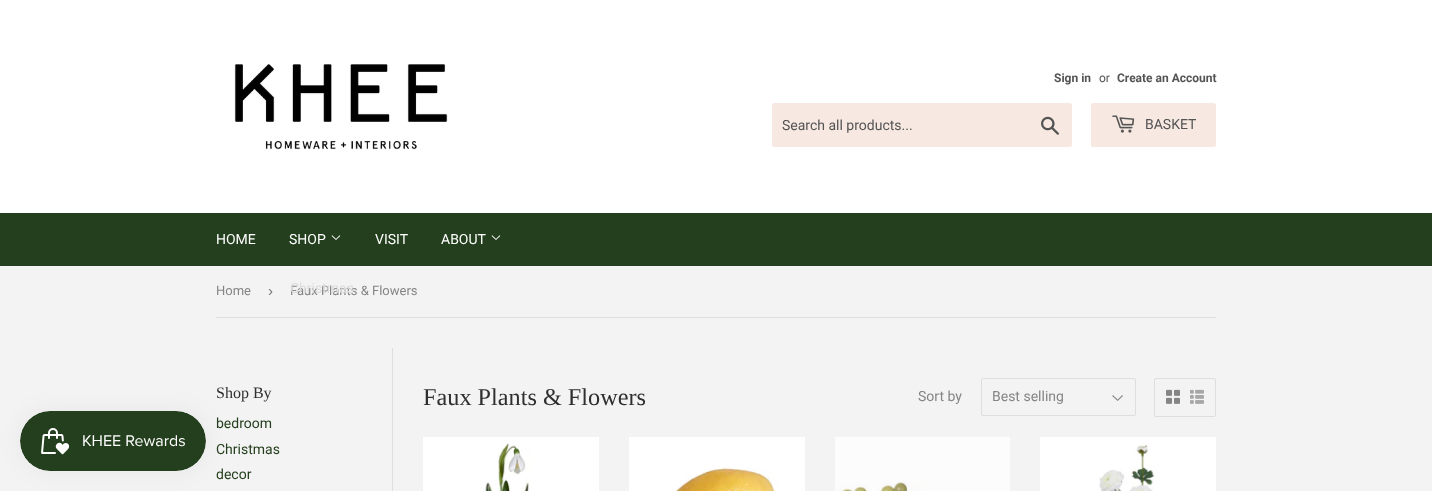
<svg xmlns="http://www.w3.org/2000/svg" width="1432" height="491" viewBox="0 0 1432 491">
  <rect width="100%" height="100%" fill="rgb(243,243,243)"/>
  <rect x="0" y="0" width="1432" height="213" fill="rgb(255,255,255)"/>
  <image x="234" y="64" width="214" height="86" href="pic1.png"/>
  <text x="1054" y="82" font-family="Roboto" font-size="12" font-weight="bold" fill="rgb(84,84,84)">Sign in</text>
  <text x="1099" y="82" font-family="Roboto" font-size="12" fill="rgb(84,84,84)">or</text>
  <text x="1117" y="82" font-family="Roboto" font-size="12" font-weight="bold" fill="rgb(84,84,84)">Create an Account</text>
  <rect x="772" y="103" width="300" height="44" rx="2" fill="rgb(247,233,226)"/>
  <text x="782" y="130" font-family="Roboto" font-size="14" fill="rgb(84,84,84)">Search all products...</text>
  <image x="1041" y="116" width="18" height="19" href="pic2.png"/>
  <rect x="1091" y="103" width="125" height="44" rx="2" fill="rgb(247,233,226)"/>
  <image x="1112" y="115" width="23" height="18" href="pic3.png"/>
  <text x="1145" y="129" font-family="Roboto" font-size="14" fill="rgb(84,84,84)">BASKET</text>
  <rect x="0" y="213" width="1432" height="53" fill="rgb(36,63,29)"/>
  <g font-family="Roboto" font-size="14" fill="rgb(255,255,255)">
    <text x="216" y="244">HOME</text>
    <text x="289" y="244">SHOP</text>
  </g>
  <image x="331" y="235" width="10" height="5" href="pic4.png"/>
  <text x="290" y="295" font-family="Roboto" font-size="13" fill="rgb(133,133,133)">Faux Plants &amp; Flowers</text>
  <text x="290" y="293" font-family="Roboto" font-size="14" fill="rgb(220,220,220)">Christmas</text>
  <g font-family="Roboto" font-size="14" fill="rgb(255,255,255)">
    <text x="375" y="244">VISIT</text>
    <text x="441" y="244">ABOUT</text>
  </g>
  <image x="491" y="235" width="10" height="5" href="pic4.png"/>
  <rect x="20" y="411" width="186" height="60" rx="30" fill="rgba(0,0,0,0.05)" filter="blur(12.5px)"/>
  <image x="20" y="411" width="186" height="60" href="pic5.png"/>
  <rect x="216" y="317" width="1000" height="1" fill="rgb(222,222,222)"/>
  <text x="216" y="295" font-family="Roboto" font-size="13" fill="rgb(133,133,133)">Home</text>
  <text x="268" y="296" font-family="Liberation Sans" font-size="15" fill="rgb(118,118,118)">›</text>
  <text x="216" y="398" font-family="Liberation Serif" font-size="16" fill="rgb(47,47,47)">Shop By</text>
  <g font-family="Roboto" font-size="14" fill="rgb(36,63,29)">
    <text>
      <tspan x="216" y="428">bedroom</tspan>
      <tspan x="216" y="454">Christmas</tspan>
      <tspan x="216" y="479">decor</tspan>
    </text>
  </g>
  <rect x="392" y="348" width="1" height="143" fill="rgb(222,222,222)"/>
  <text x="423" y="405" font-family="Liberation Serif" font-size="24.25" fill="rgb(47,47,47)">Faux Plants &amp; Flowers</text>
  <text x="918" y="401" font-family="Roboto" font-size="14" fill="rgb(133,133,133)">Sort by</text>
  <image x="1112" y="395" width="11" height="6" href="pic6.png"/>
  <rect x="981.5" y="378.5" width="154" height="37" rx="1.5" fill="none" stroke="rgb(222,222,222)"/>
  <text x="992" y="401" font-family="Roboto" font-size="14" fill="rgb(133,133,133)">Best selling</text>
  <rect x="1154.5" y="378.5" width="61" height="38" rx="1.5" fill="none" stroke="rgb(222,222,222)"/>
  <image x="1166" y="389" width="14" height="15" href="pic7.png"/>
  <image x="1190" y="389" width="14" height="15" href="pic8.png"/>
  <image x="423" y="437" width="176" height="54" href="pic9.png"/>
  <image x="629" y="437" width="176" height="54" href="pic10.png"/>
  <image x="835" y="437" width="175" height="54" href="pic11.png"/>
  <image x="1040" y="437" width="176" height="54" href="pic12.png"/>
</svg>
